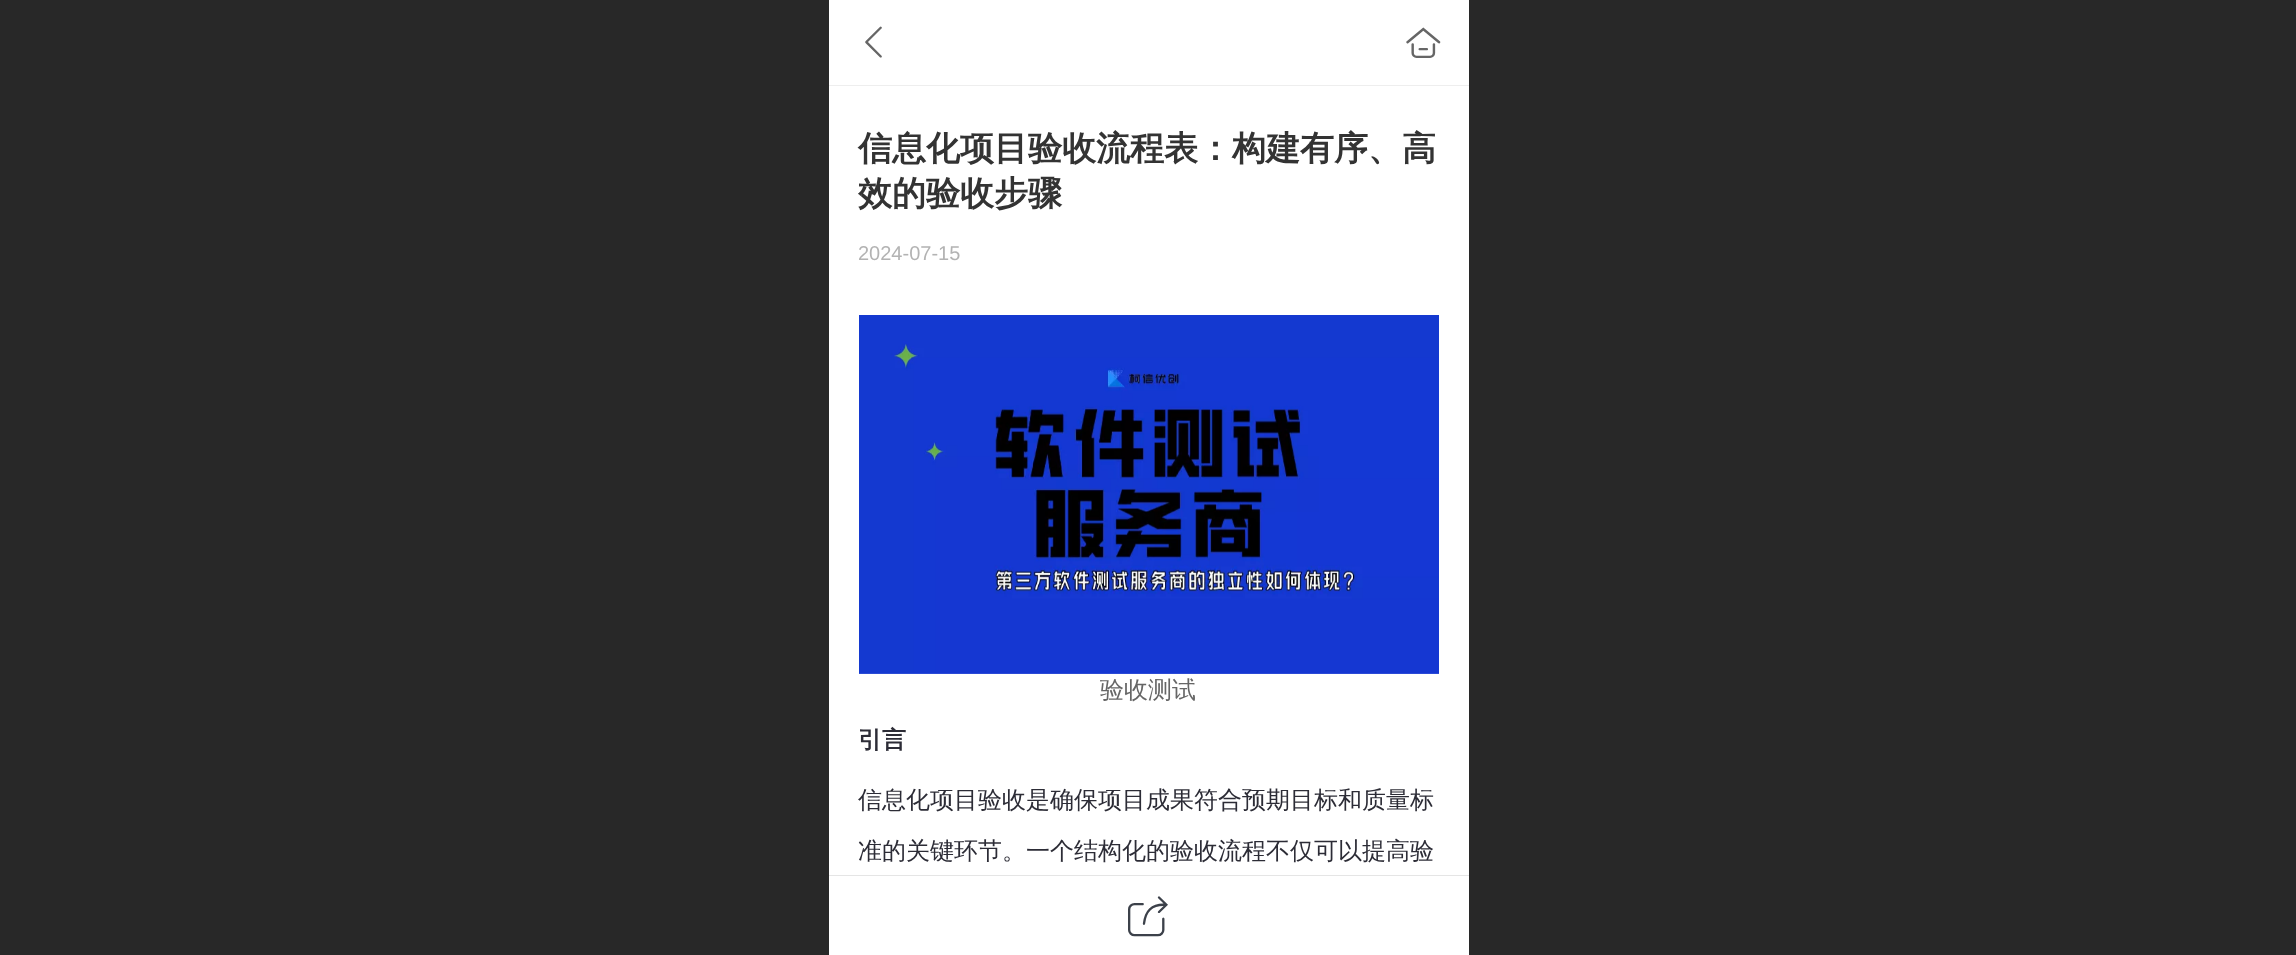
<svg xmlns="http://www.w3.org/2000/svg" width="2296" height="955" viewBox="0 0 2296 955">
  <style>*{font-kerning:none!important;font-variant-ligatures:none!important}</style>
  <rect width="100%" height="100%" fill="rgb(255,255,255)"/>
  <rect x="0" y="0" width="829" height="955" fill="rgb(40,40,40)"/>
  <rect x="829" y="85" width="640" height="1" fill="rgb(238,238,238)"/>
  <text x="858" y="55" font-family="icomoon" font-size="31" fill="rgb(102,102,102)">򰊔</text>
  <text x="1406" y="57" font-family="icomoon" font-size="34" fill="rgb(102,102,102)">򰌓</text>
  <g font-family="WenQuanYi Zen Hei" font-size="34" font-weight="bold" fill="rgb(51,51,51)">
    <text>
      <tspan x="858" y="160">信息化项目验收流程表：构建有序、高</tspan>
      <tspan x="858" y="205">效的验收步骤</tspan>
    </text>
  </g>
  <text x="858" y="260" font-family="Liberation Sans" font-size="20" fill="rgb(179,179,179)">2024-07-15</text>
  <image x="859" y="315" width="580" height="359" href="pic1.png"/>
  <text x="1100" y="698" font-family="WenQuanYi Zen Hei" font-size="24" font-weight="500" fill="rgb(102,102,102)">验收测试</text>
  <text x="858" y="748" font-family="WenQuanYi Zen Hei" font-size="24" font-weight="bold" fill="rgb(44,44,54)">引言</text>
  <g font-family="WenQuanYi Zen Hei" font-size="24" font-weight="500" fill="rgb(44,44,54)">
    <text x="858" y="808">信息化项目验收是确保项目成果符合预期目标和质量标</text>
    <text x="858" y="859">准的关键环节。一个结构化的验收流程不仅可以提高验</text>
  </g>
  <rect x="829" y="875" width="640" height="1" fill="rgb(229,229,229)"/>
  <text x="1128" y="933" font-family="icomoon" font-size="40" fill="rgb(60,65,74)">򰌐</text>
  <rect x="1469" y="0" width="827" height="955" fill="rgb(40,40,40)"/>
</svg>
